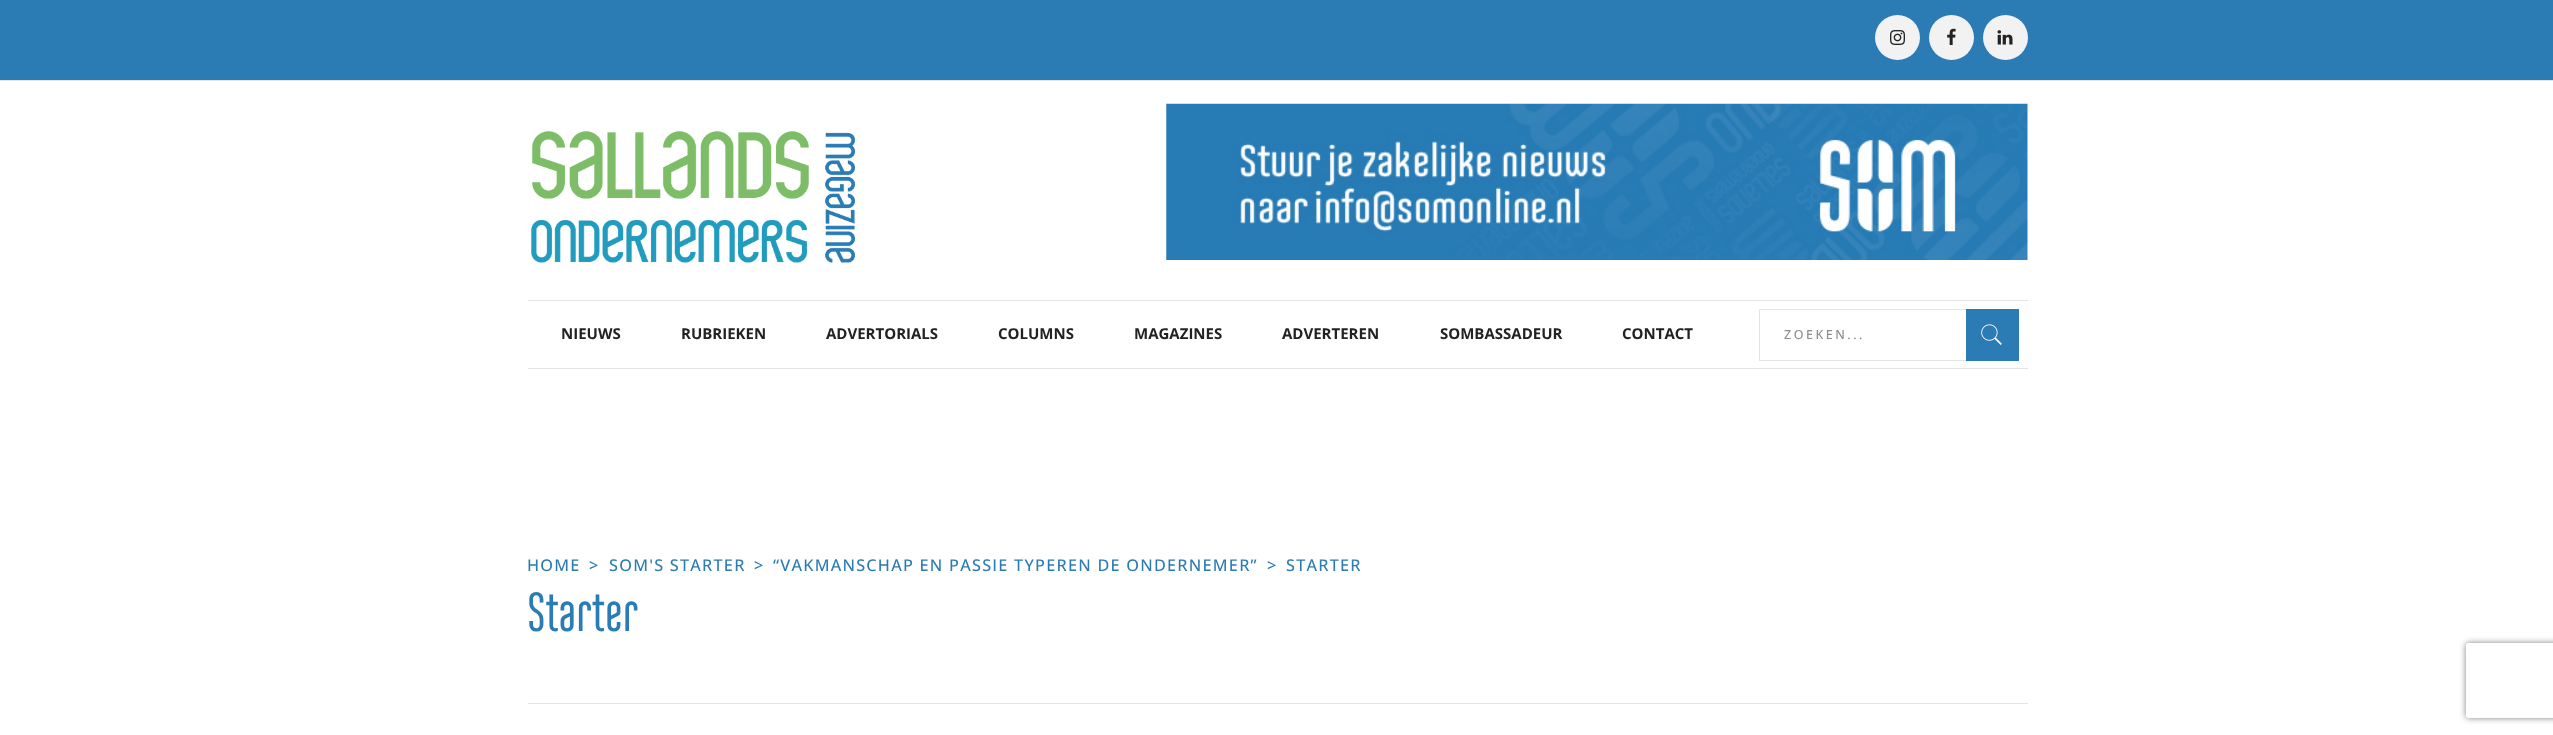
<svg xmlns="http://www.w3.org/2000/svg" width="2553" height="735" viewBox="0 0 2553 735">
  <defs>
    <clipPath id="clip1"><path d="M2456 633H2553V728H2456ZM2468.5 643H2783.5C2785 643 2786 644 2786 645.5V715.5C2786 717 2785 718 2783.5 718H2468.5C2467 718 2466 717 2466 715.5V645.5C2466 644 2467 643 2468.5 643Z" clip-rule="evenodd"/></clipPath>
  </defs>
  <rect width="100%" height="100%" fill="rgb(255,255,255)"/>
  <rect x="0" y="0" width="2553" height="80" fill="rgb(43,123,180)"/>
  <rect x="0" y="80" width="2553" height="1" fill="rgb(228,228,228)"/>
  <circle cx="1897.5" cy="37.5" r="22.5" fill="rgb(242,242,242)"/>
  <image x="1890" y="30" width="15" height="15" href="pic1.png"/>
  <circle cx="1951.5" cy="37.5" r="22.5" fill="rgb(242,242,242)"/>
  <image x="1947" y="28" width="9" height="17" href="pic2.png"/>
  <circle cx="2005.5" cy="37.5" r="22.5" fill="rgb(242,242,242)"/>
  <image x="1997" y="30" width="16" height="15" href="pic3.png"/>
  <image x="531" y="131" width="324" height="132" href="pic4.png"/>
  <image x="1166" y="103" width="862" height="157" href="pic5.png"/>
  <rect x="528" y="300" width="1500" height="1" fill="rgb(228,228,228)"/>
  <rect x="528" y="368" width="1500" height="1" fill="rgb(228,228,228)"/>
  <g font-family="Open Sans" font-size="15" font-weight="bold" fill="rgb(34,34,34)">
    <text x="561" y="339">NIEUWS</text>
    <text x="681" y="339">RUBRIEKEN</text>
    <text x="826" y="339">ADVERTORIALS</text>
    <text x="998" y="339">COLUMNS</text>
    <text x="1134" y="339">MAGAZINES</text>
    <text x="1282" y="339">ADVERTEREN</text>
    <text x="1440" y="339">SOMBASSADEUR</text>
    <text x="1622" y="339">CONTACT</text>
  </g>
  <rect x="1759" y="309" width="207" height="1" fill="rgb(228,228,228)"/>
  <rect x="1759" y="360" width="207" height="1" fill="rgb(228,228,228)"/>
  <rect x="1759" y="309" width="1" height="52" fill="rgb(228,228,228)"/>
  <text x="1784" y="339" font-family="Open Sans" font-size="12.5" font-weight="500" letter-spacing="2.5" fill="rgb(141,141,141)">ZOEKEN...</text>
  <rect x="1966" y="309" width="53" height="52" fill="rgb(43,123,180)"/>
  <image x="1981" y="324" width="21" height="21" href="pic6.png"/>
  <rect x="528" y="703" width="1500" height="1" fill="rgb(228,228,228)"/>
  <g font-family="Open Sans" font-size="16.25" font-weight="500" letter-spacing="1.25" fill="rgb(43,123,180)">
    <text x="527" y="571">HOME</text>
    <text x="589" y="571">&gt;</text>
    <text x="609" y="571">SOM'S STARTER</text>
    <text x="754" y="571">&gt;</text>
    <text x="773" y="571">“VAKMANSCHAP EN PASSIE TYPEREN DE ONDERNEMER”</text>
    <text x="1267" y="571">&gt;</text>
    <text x="1286" y="571">STARTER</text>
  </g>
  <text x="527" y="631" font-family="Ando" font-size="55" font-weight="600" fill="rgb(43,123,180)">Starter</text>
  <g clip-path="url(#clip1)">
    <rect x="2466" y="643" width="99" height="75" rx="2.5" fill="rgb(128,128,128)" filter="blur(3px)"/>
  </g>
</svg>
